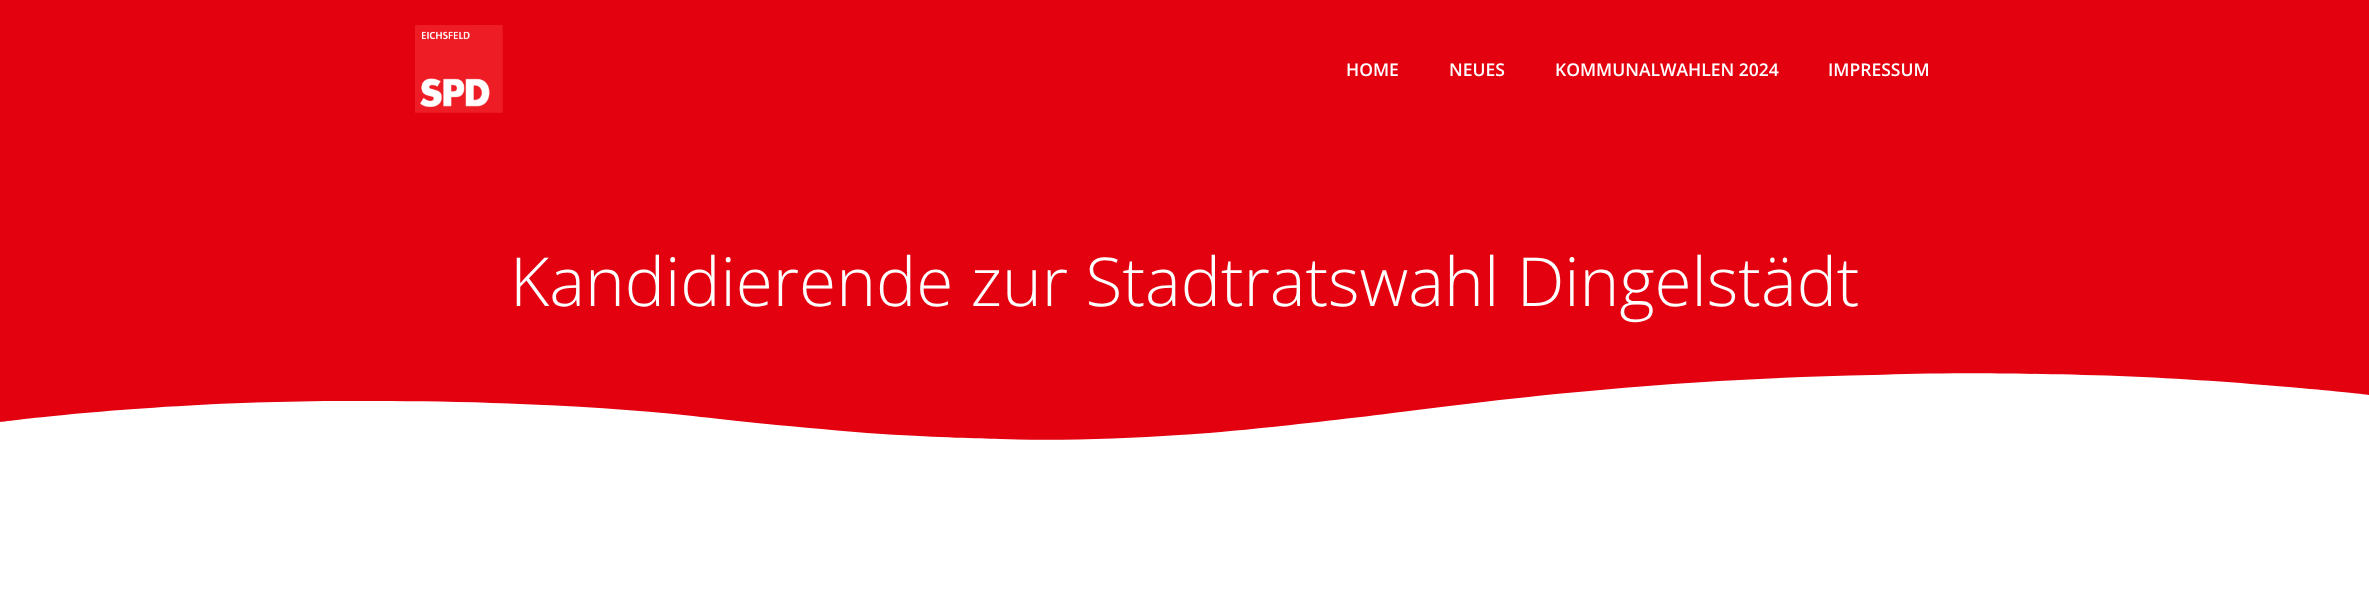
<svg xmlns="http://www.w3.org/2000/svg" width="2369" height="594" viewBox="0 0 2369 594">
  <rect width="100%" height="100%" fill="rgb(255,255,255)"/>
  <rect x="0" y="0" width="2369" height="440" fill="rgb(227,0,15)"/>
  <image x="415" y="25" width="88" height="88" href="pic1.png"/>
  <g font-family="Open Sans" font-size="17.5" font-weight="600" fill="rgb(255,255,255)">
    <text x="1346" y="76">HOME</text>
    <text x="1449" y="76">NEUES</text>
    <text x="1555" y="76">KOMMUNALWAHLEN 2024</text>
    <text x="1828" y="76">IMPRESSUM</text>
  </g>
  <text x="510" y="306" font-family="Open Sans" font-size="67.5" font-weight="300" fill="rgb(255,255,255)">Kandidierende zur Stadtratswahl Dingelstädt</text>
  <path d="M1000 439C1053 441 1122 439 1179 435C1235 432 1347 419 1417 410C1597 387 1734 378 1873 375C1929 373 1989 372 2119 376C2248 381 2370 395 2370 395V444H0V422C0 422 171 399 375 401C468 401 595 405 693 416C743 422 817 429 882 434C946 438 975 438 1000 439Z" fill="rgb(255,255,255)"/>
</svg>
